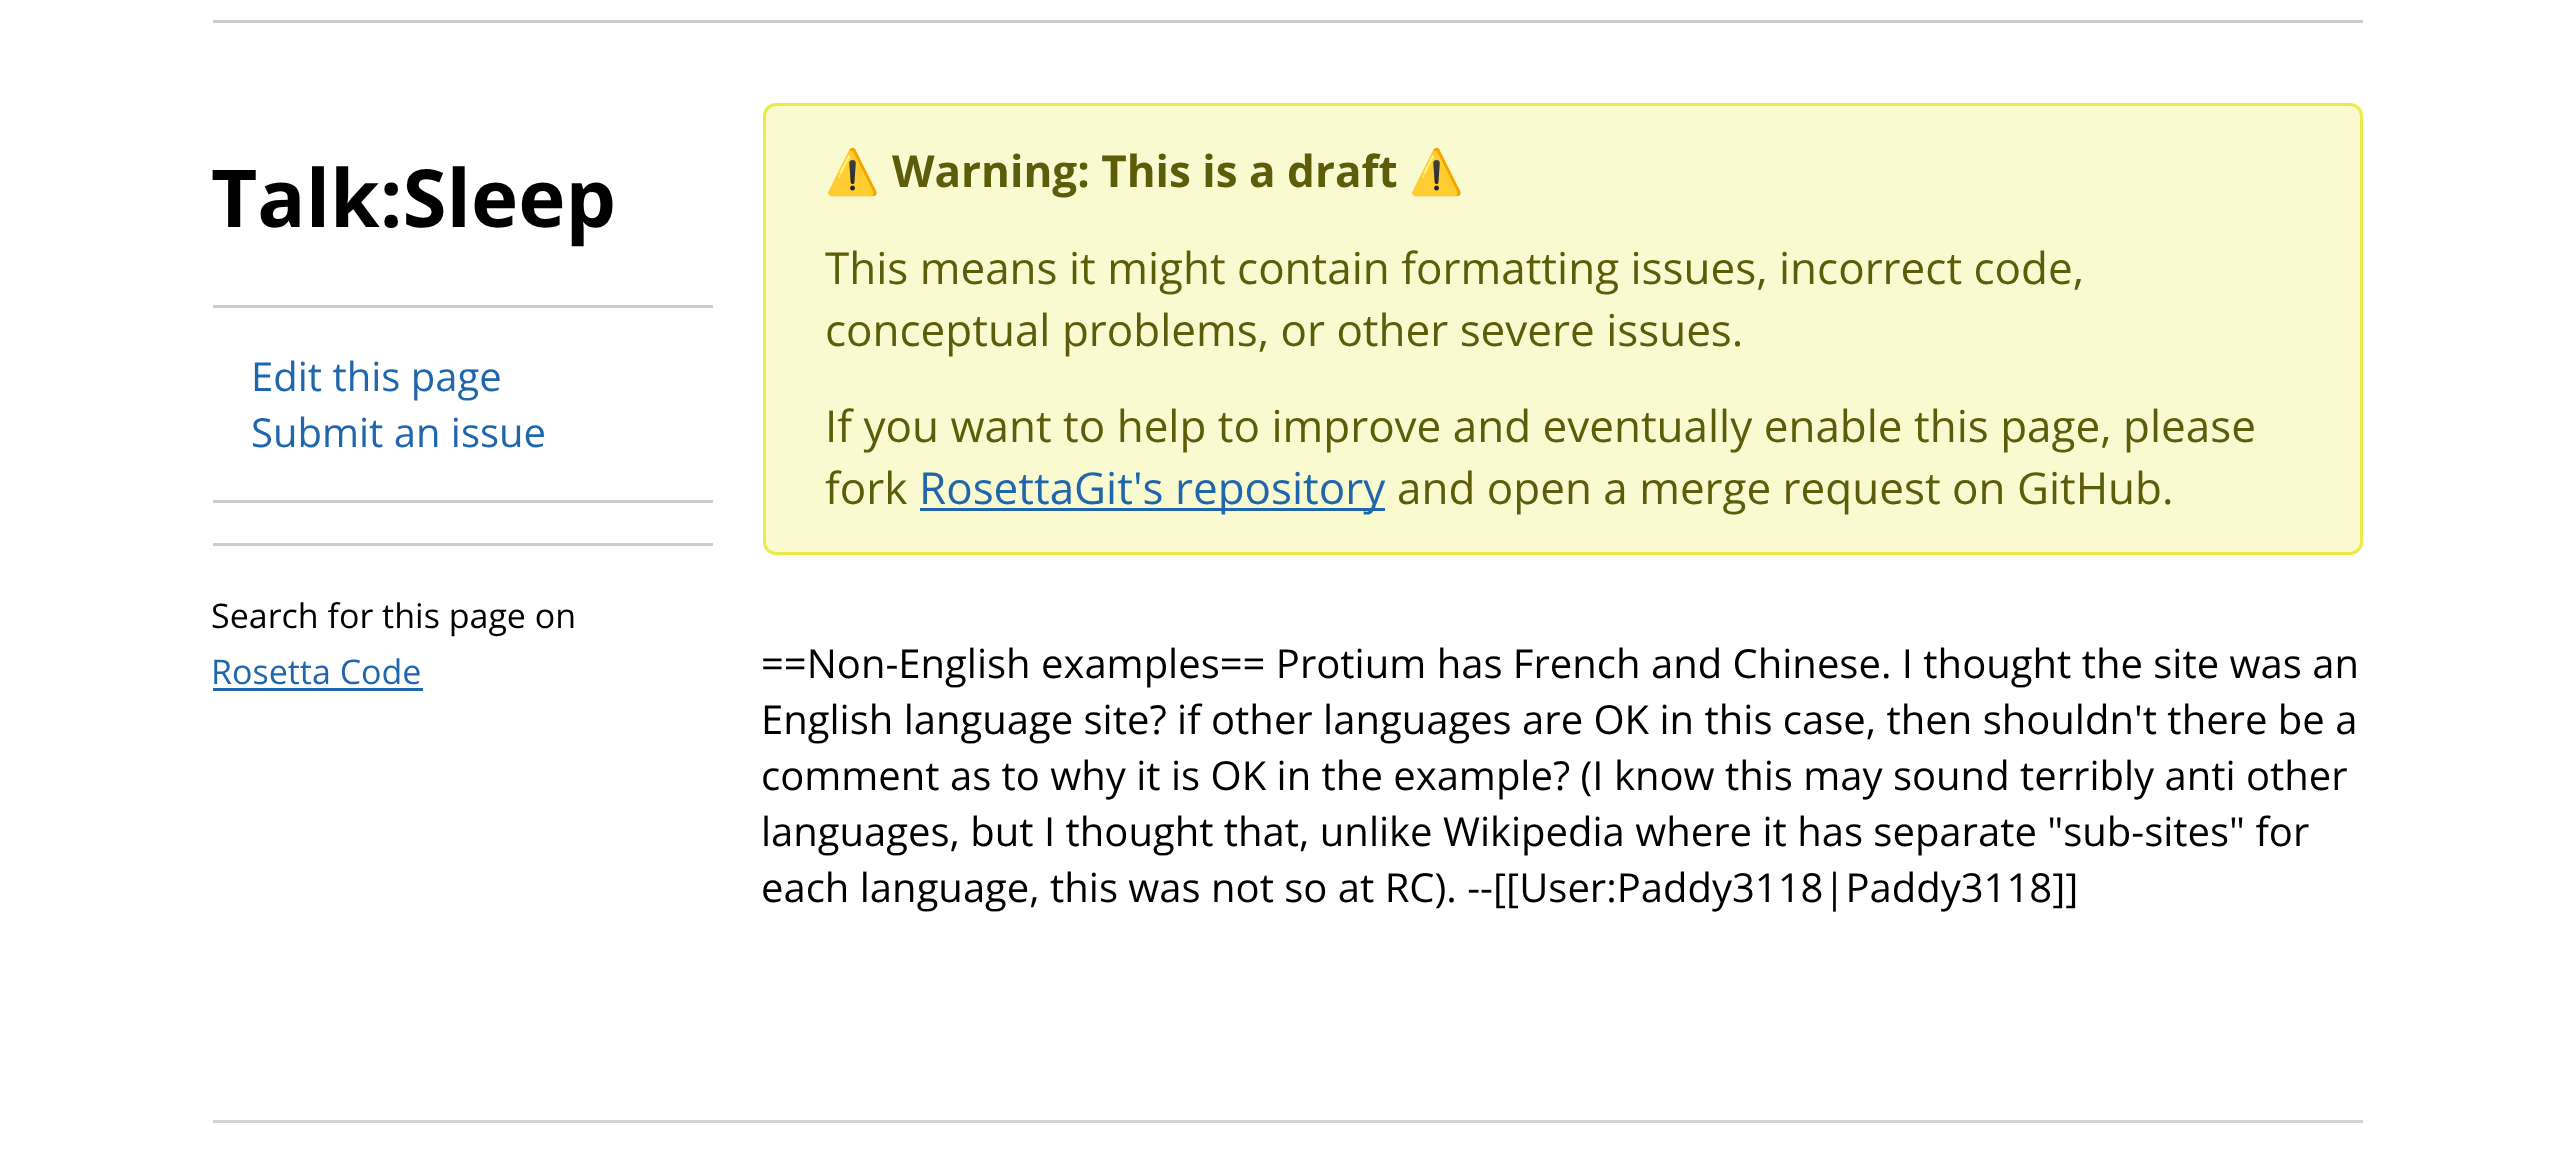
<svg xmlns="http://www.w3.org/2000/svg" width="2572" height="1149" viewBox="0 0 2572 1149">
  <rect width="100%" height="100%" fill="rgb(255,255,255)"/>
  <rect x="213" y="20" width="2150" height="3" fill="rgb(204,204,204)"/>
  <text x="211" y="227" font-family="Open Sans" font-size="80" font-weight="bold" fill="rgb(0,0,0)">Talk:Sleep</text>
  <rect x="213" y="305" width="500" height="3" fill="rgb(204,204,204)"/>
  <g font-family="Open Sans" font-size="40" fill="rgb(31,102,173)">
    <text>
      <tspan x="251" y="391">Edit this page</tspan>
      <tspan x="251" y="447">Submit an issue</tspan>
    </text>
  </g>
  <rect x="213" y="500" width="500" height="3" fill="rgb(204,204,204)"/>
  <rect x="213" y="543" width="500" height="3" fill="rgb(204,204,204)"/>
  <text x="211" y="628" font-family="Open Sans" font-size="34" fill="rgb(0,0,0)">Search for this page on</text>
  <text x="211" y="684" font-family="Open Sans" font-size="34" fill="rgb(31,102,173)">Rosetta Code</text>
  <rect x="213" y="688" width="210" height="3" fill="rgb(31,102,173)"/>
  <rect x="764.5" y="104.5" width="1597" height="449" rx="11.5" fill="rgb(250,250,209)" stroke="rgb(235,235,71)" stroke-width="3"/>
  <text x="825" y="187" font-family="Noto Color Emoji" font-size="44" font-weight="bold" fill="rgb(92,92,10)">⚠️</text>
  <text x="892" y="187" font-family="Open Sans" font-size="44" font-weight="bold" fill="rgb(92,92,10)">Warning: This is a draft</text>
  <text x="1409" y="187" font-family="Noto Color Emoji" font-size="44" font-weight="bold" fill="rgb(92,92,10)">⚠️</text>
  <g font-family="Open Sans" font-size="44" fill="rgb(92,92,10)">
    <text x="825" y="284">This means it might contain formatting issues,</text>
    <text x="1779" y="284">incorrect code,</text>
    <text x="825" y="346">conceptual problems, or other severe issues.</text>
    <text x="825" y="442">If you want to help to improve and eventually enable this page,</text>
    <text x="2123" y="442">please</text>
    <text x="825" y="504">fork</text>
  </g>
  <rect x="920" y="508" width="465" height="3" fill="rgb(31,102,173)"/>
  <text x="919" y="504" font-family="Open Sans" font-size="44" fill="rgb(31,102,173)">RosettaGit's repository</text>
  <text x="1397" y="504" font-family="Open Sans" font-size="44" fill="rgb(92,92,10)">and open a merge request on GitHub.</text>
  <g font-family="Open Sans" font-size="40" fill="rgb(0,0,0)">
    <text>
      <tspan x="761" y="678">==Non-English examples== Protium has French and Chinese. I thought the site was an</tspan>
      <tspan x="761" y="734">English language site? if other languages are OK in this case, then shouldn't there be a</tspan>
      <tspan x="761" y="790">comment as to why it is OK in the example? (I know this may sound terribly anti other</tspan>
      <tspan x="761" y="846">languages, but I thought that, unlike Wikipedia where it has separate "sub-sites" for</tspan>
      <tspan x="761" y="902">each language, this was not so at RC). --[[User:Paddy3118|Paddy3118]]</tspan>
    </text>
  </g>
  <rect x="213" y="1120" width="2150" height="3" fill="rgb(211,211,211)"/>
</svg>
